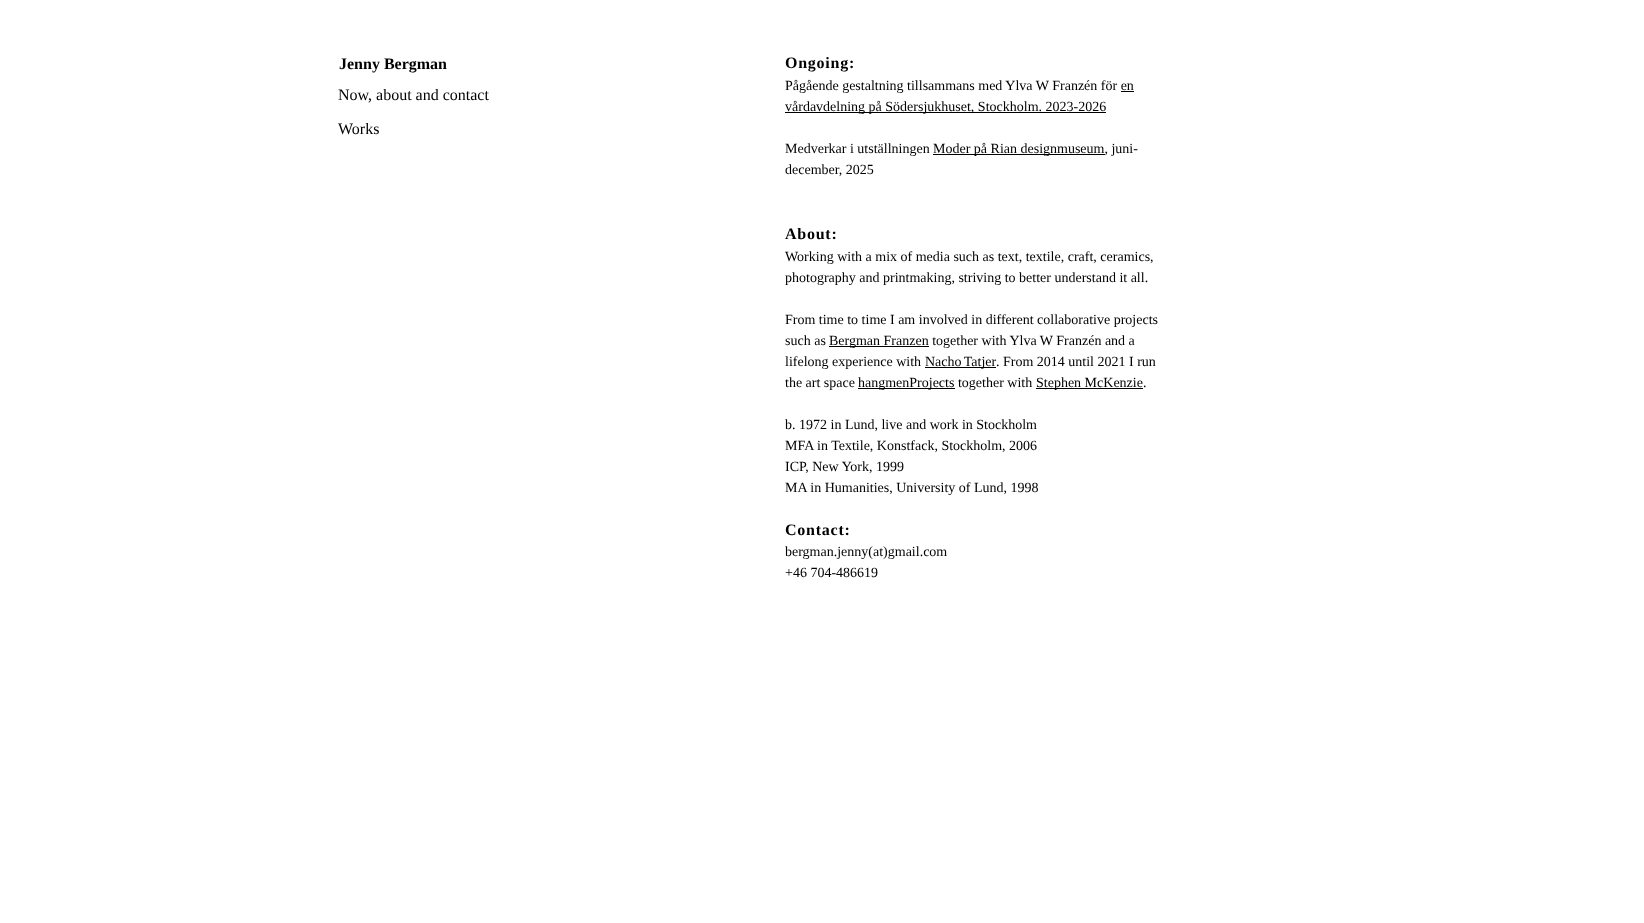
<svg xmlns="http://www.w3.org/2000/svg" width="1644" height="923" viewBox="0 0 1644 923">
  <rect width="100%" height="100%" fill="rgb(255,255,255)"/>
  <text x="339" y="69" font-family="Liberation Serif" font-size="16" font-weight="bold" fill="rgb(0,0,0)">Jenny Bergman</text>
  <g font-family="Liberation Serif" font-size="16" fill="rgb(0,0,0)">
    <text x="338" y="100">Now, about and contact</text>
    <text x="338" y="134">Works</text>
  </g>
  <text x="785" y="68" font-family="Liberation Serif" font-size="16" font-weight="bold" letter-spacing="0.75" fill="rgb(0,0,0)">Ongoing:</text>
  <text x="785" y="90" font-family="Liberation Serif" font-size="14" fill="rgb(0,0,0)">Pågående gestaltning tillsammans med Ylva W Franzén för en</text>
  <rect x="1121" y="91" width="13" height="1" fill="rgb(0,0,0)"/>
  <rect x="785" y="112" width="321" height="1" fill="rgb(0,0,0)"/>
  <g font-family="Liberation Serif" font-size="14" fill="rgb(0,0,0)">
    <text x="785" y="111">vårdavdelning på Södersjukhuset, Stockholm. 2023-2026</text>
    <text x="785" y="153">Medverkar i utställningen</text>
  </g>
  <rect x="933" y="154" width="172" height="1" fill="rgb(0,0,0)"/>
  <g font-family="Liberation Serif" font-size="14" fill="rgb(0,0,0)">
    <text x="933" y="153">Moder på Rian designmuseum, juni-</text>
    <text x="785" y="174">december, 2025</text>
  </g>
  <text x="785" y="239" font-family="Liberation Serif" font-size="16" font-weight="bold" letter-spacing="0.75" fill="rgb(0,0,0)">About:</text>
  <g font-family="Liberation Serif" font-size="14" fill="rgb(0,0,0)">
    <text>
      <tspan x="785" y="261">Working with a mix of media such as text, textile, craft, ceramics,</tspan>
      <tspan x="785" y="282">photography and printmaking, striving to better understand it all.</tspan>
    </text>
    <text>
      <tspan x="785" y="324">From time to time I am involved in different collaborative projects</tspan>
      <tspan x="785" y="345">such as</tspan>
    </text>
  </g>
  <rect x="829" y="346" width="100" height="1" fill="rgb(0,0,0)"/>
  <g font-family="Liberation Serif" font-size="14" fill="rgb(0,0,0)">
    <text x="829" y="345">Bergman Franzen together with Ylva W Franzén and a</text>
    <text x="785" y="366">lifelong experience with</text>
  </g>
  <rect x="925" y="367" width="71" height="1" fill="rgb(0,0,0)"/>
  <g font-family="Liberation Serif" font-size="14" fill="rgb(0,0,0)">
    <text x="925" y="366" word-spacing="-1">Nacho Tatjer</text>
    <text x="996" y="366">. From 2014 until 2021 I run</text>
    <text x="785" y="387">the art space</text>
  </g>
  <rect x="858" y="388" width="97" height="1" fill="rgb(0,0,0)"/>
  <text x="858" y="387" font-family="Liberation Serif" font-size="14" fill="rgb(0,0,0)">hangmenProjects together with</text>
  <rect x="1036" y="388" width="107" height="1" fill="rgb(0,0,0)"/>
  <g font-family="Liberation Serif" font-size="14" fill="rgb(0,0,0)">
    <text x="1036" y="387">Stephen McKenzie.</text>
    <text>
      <tspan x="785" y="429">b. 1972 in Lund, live and work in Stockholm</tspan>
      <tspan x="785" y="450">MFA in Textile, Konstfack, Stockholm, 2006</tspan>
      <tspan x="785" y="471">ICP, New York, 1999</tspan>
      <tspan x="785" y="492">MA in Humanities, University of Lund, 1998</tspan>
    </text>
  </g>
  <text x="785" y="535" font-family="Liberation Serif" font-size="16" font-weight="bold" letter-spacing="0.75" fill="rgb(0,0,0)">Contact:</text>
  <g font-family="Liberation Serif" font-size="14" fill="rgb(0,0,0)">
    <text>
      <tspan x="785" y="556">bergman.jenny(at)gmail.com</tspan>
      <tspan x="785" y="577">+46 704-486619</tspan>
    </text>
  </g>
</svg>
